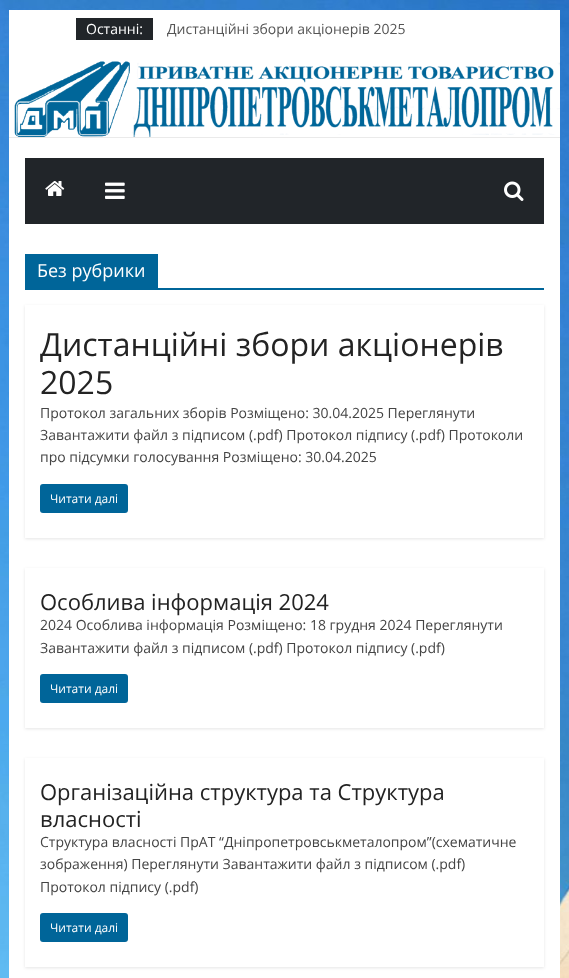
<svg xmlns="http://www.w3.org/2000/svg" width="569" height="978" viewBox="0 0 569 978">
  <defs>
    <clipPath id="clip1"><path d="M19 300H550V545H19ZM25 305H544V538H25Z" clip-rule="evenodd"/></clipPath>
    <clipPath id="clip2"><path d="M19 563H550V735H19ZM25 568H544V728H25Z" clip-rule="evenodd"/></clipPath>
    <clipPath id="clip3"><path d="M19 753H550V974H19ZM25 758H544V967H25Z" clip-rule="evenodd"/></clipPath>
  </defs>
  <rect width="100%" height="100%" fill="rgb(255,255,255)"/>
  <image x="0" y="0" width="569" height="978" href="pic1.png"/>
  <rect x="9" y="10" width="551" height="968" fill="rgb(255,255,255)"/>
  <rect x="76" y="18" width="77" height="22" fill="rgb(33,37,41)"/>
  <text x="86" y="34" font-family="Open Sans" font-size="14" fill="rgb(255,255,255)">Останні:</text>
  <text x="167" y="34" font-family="Open Sans" font-size="14" fill="rgb(85,85,85)">Дистанційні збори акціонерів 2025</text>
  <image x="14" y="61" width="546" height="76" href="pic2.png"/>
  <rect x="9" y="137" width="551" height="1" fill="rgb(234,234,234)"/>
  <rect x="25" y="158" width="519" height="66" fill="rgb(33,37,41)"/>
  <image x="45" y="181" width="20" height="15" href="pic3.png"/>
  <image x="105" y="182" width="20" height="17" href="pic4.png"/>
  <image x="504" y="181" width="20" height="20" href="pic5.png"/>
  <rect x="25" y="288" width="519" height="2" fill="rgb(0,101,153)"/>
  <rect x="25" y="254" width="133" height="34" fill="rgb(0,101,153)"/>
  <text x="37" y="277" font-family="Open Sans" font-size="18" fill="rgb(255,255,255)">Без рубрики</text>
  <g clip-path="url(#clip1)">
    <rect x="25" y="306" width="519" height="233" fill="rgba(0,0,0,0.1)" filter="blur(1.5px)"/>
  </g>
  <g font-family="Open Sans" font-size="32" fill="rgb(35,35,35)">
    <text>
      <tspan x="40" y="356">Дистанційні збори акціонерів</tspan>
      <tspan x="40" y="394">2025</tspan>
    </text>
  </g>
  <g font-family="Open Sans" font-size="14" fill="rgb(68,68,68)">
    <text>
      <tspan x="40" y="418">Протокол загальних зборів Розміщено: 30.04.2025 Переглянути</tspan>
      <tspan x="40" y="440">Завантажити файл з підписом (.pdf) Протокол пiдпису (.pdf) Протоколи</tspan>
      <tspan x="40" y="462">про підсумки голосування Розміщено: 30.04.2025</tspan>
    </text>
  </g>
  <rect x="40" y="484" width="88" height="29" rx="3" fill="rgb(0,101,153)"/>
  <text x="50" y="503" font-family="Open Sans" font-size="12" fill="rgb(255,255,255)">Читати далі</text>
  <g clip-path="url(#clip2)">
    <rect x="25" y="569" width="519" height="160" fill="rgba(0,0,0,0.1)" filter="blur(1.5px)"/>
  </g>
  <text x="40" y="610" font-family="Open Sans" font-size="22" fill="rgb(35,35,35)">Особлива інформація 2024</text>
  <g font-family="Open Sans" font-size="14" fill="rgb(68,68,68)">
    <text>
      <tspan x="40" y="630">2024 Особлива інформація Розміщено: 18 грудня 2024 Переглянути</tspan>
      <tspan x="40" y="653">Завантажити файл з підписом (.pdf) Протокол пiдпису (.pdf)</tspan>
    </text>
  </g>
  <rect x="40" y="674" width="88" height="29" rx="3" fill="rgb(0,101,153)"/>
  <text x="50" y="693" font-family="Open Sans" font-size="12" fill="rgb(255,255,255)">Читати далі</text>
  <g clip-path="url(#clip3)">
    <rect x="25" y="759" width="519" height="209" fill="rgba(0,0,0,0.1)" filter="blur(1.5px)"/>
  </g>
  <g font-family="Open Sans" font-size="22" fill="rgb(35,35,35)">
    <text>
      <tspan x="40" y="800">Організаційна структура та Структура</tspan>
      <tspan x="40" y="827">власності</tspan>
    </text>
  </g>
  <g font-family="Open Sans" font-size="14" fill="rgb(68,68,68)">
    <text>
      <tspan x="40" y="847">Структура власності ПрАТ “Дніпропетровськметалопром”(схематичне</tspan>
      <tspan x="40" y="869">зображення) Переглянути Завантажити файл з підписом (.pdf)</tspan>
      <tspan x="40" y="892">Протокол пiдпису (.pdf)</tspan>
    </text>
  </g>
  <rect x="40" y="913" width="88" height="29" rx="3" fill="rgb(0,101,153)"/>
  <text x="50" y="932" font-family="Open Sans" font-size="12" fill="rgb(255,255,255)">Читати далі</text>
</svg>
